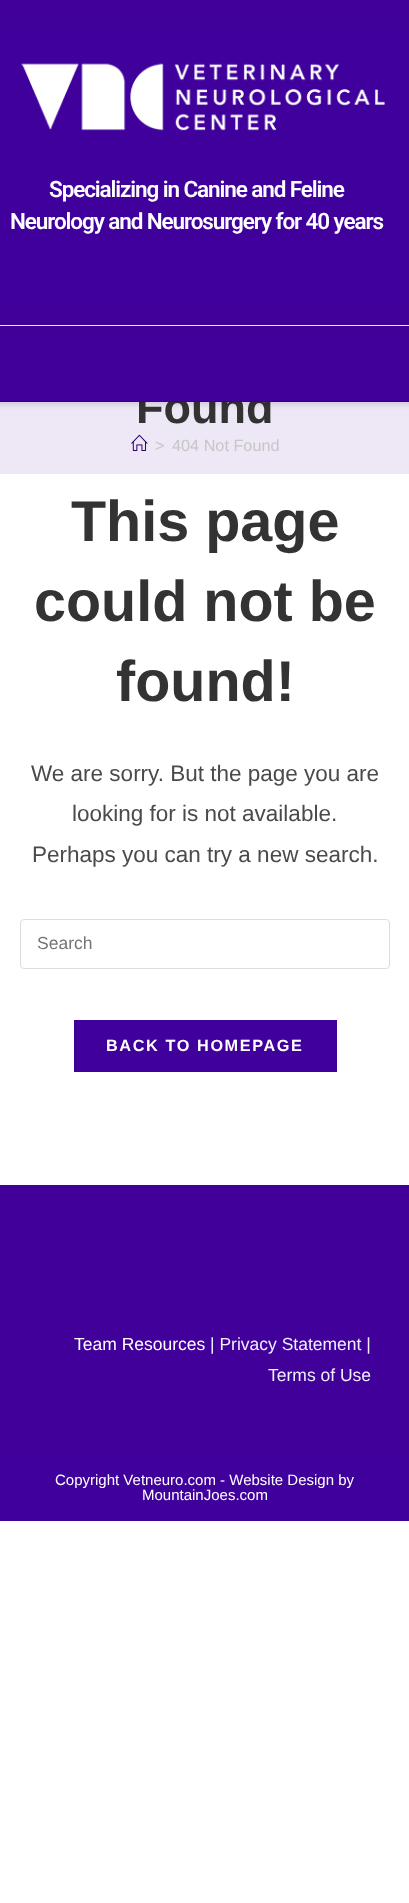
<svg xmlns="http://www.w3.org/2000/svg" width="409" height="1903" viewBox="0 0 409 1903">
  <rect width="100%" height="100%" fill="rgb(255,255,255)"/>
  <rect x="0" y="0" width="409" height="325" fill="rgb(65,0,153)"/>
  <rect x="0" y="325" width="409" height="1" fill="rgb(241,241,241)"/>
  <rect x="0" y="19" width="409" height="287" fill="rgb(64,0,156)"/>
  <image x="21" y="63" width="364" height="68" href="pic1.png"/>
  <g font-family="Roboto" font-size="22.5" font-weight="600" letter-spacing="-1.1" fill="rgb(255,255,255)">
    <text x="49" y="197">Specializing in Canine and Feline</text>
    <text x="10" y="229">Neurology and Neurosurgery for 40 years</text>
  </g>
  <rect x="0" y="402" width="409" height="72" fill="rgb(238,232,246)"/>
  <text x="136" y="423" font-family="Liberation Sans" font-size="45" font-weight="bold" fill="rgb(51,51,51)">Found</text>
  <rect x="0" y="401" width="409" height="1" fill="rgb(64,0,156)"/>
  <rect x="-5" y="329" width="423" height="75" fill="rgba(0,0,0,0.15)" filter="blur(3px)"/>
  <rect x="0" y="326" width="409" height="75" fill="rgb(65,0,153)"/>
  <image x="131" y="434" width="17" height="17" href="pic2.png"/>
  <g font-family="Liberation Sans" font-size="16.25" fill="rgb(198,198,198)">
    <text x="155" y="451">&gt;</text>
    <text x="172" y="451">404 Not Found</text>
  </g>
  <g font-family="Liberation Sans" font-size="57.5" font-weight="bold" fill="rgb(51,51,51)">
    <text x="71" y="541">This page</text>
    <text x="34" y="621">could not be</text>
    <text x="116" y="701">found!</text>
  </g>
  <g font-family="Liberation Sans" font-size="22.5" fill="rgb(74,74,74)">
    <text x="31" y="781">We are sorry. But the page you are</text>
    <text x="72" y="821">looking for is not available.</text>
    <text x="32" y="862">Perhaps you can try a new search.</text>
  </g>
  <rect x="20.5" y="919.5" width="369" height="49" rx="3.5" fill="none" stroke="rgb(221,221,221)"/>
  <text x="37" y="949" font-family="Liberation Sans" font-size="17.5" fill="rgb(117,117,117)">Search</text>
  <rect x="74" y="1020" width="263" height="52" fill="rgb(64,0,156)"/>
  <text x="106" y="1051" font-family="Liberation Sans" font-size="16.25" font-weight="bold" letter-spacing="1.6" fill="rgb(255,255,255)">BACK TO HOMEPAGE</text>
  <rect x="0" y="1185" width="409" height="269" fill="rgb(65,0,153)"/>
  <text x="74" y="1350" font-family="Liberation Sans" font-size="17.5" fill="rgb(255,255,255)">Team Resources</text>
  <g font-family="Liberation Sans" font-size="17.5" fill="rgb(240,239,255)">
    <text x="210" y="1350">| Privacy Statement |</text>
    <text x="268" y="1381">Terms of Use</text>
  </g>
  <rect x="0" y="1454" width="409" height="67" fill="rgb(64,0,156)"/>
  <g font-family="Liberation Sans" font-size="15" fill="rgb(255,255,255)">
    <text x="55" y="1485">Copyright Vetneuro.com - Website Design by</text>
    <text x="142" y="1500">MountainJoes.com</text>
  </g>
</svg>
